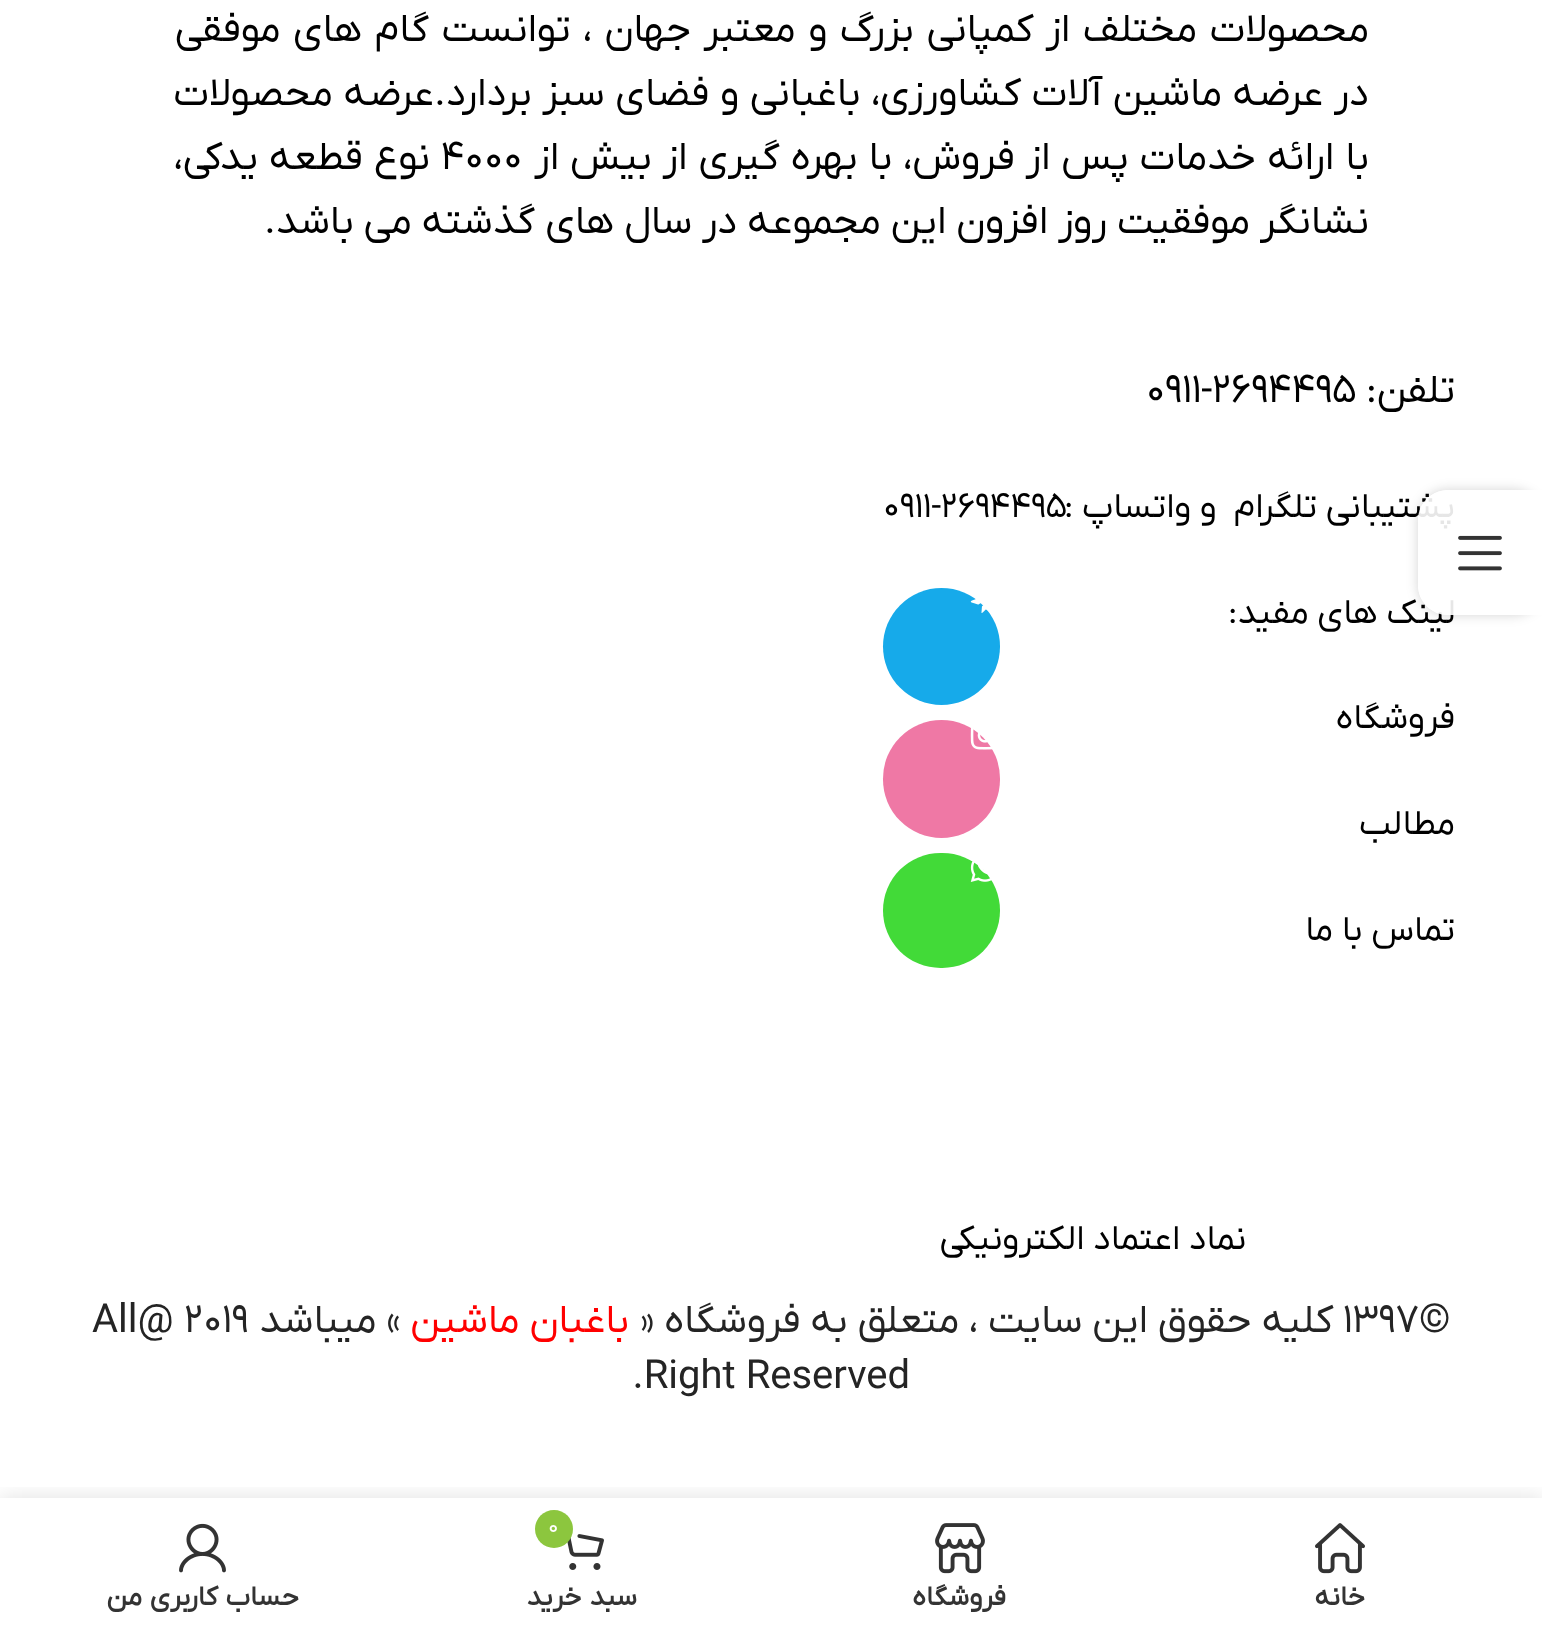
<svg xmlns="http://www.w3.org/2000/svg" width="1542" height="1634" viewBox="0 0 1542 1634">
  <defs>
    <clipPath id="clip1"><path d="M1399 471H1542V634H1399ZM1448 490H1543V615H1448C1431.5 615 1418 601.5 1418 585V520C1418 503.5 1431.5 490 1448 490Z" clip-rule="evenodd"/></clipPath>
    <clipPath id="clip2"><rect x="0" y="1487" width="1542" height="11"/></clipPath>
  </defs>
  <rect width="100%" height="100%" fill="rgb(255,255,255)"/>
  <g clip-path="url(#clip1)">
    <rect x="1418" y="490" width="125" height="125" rx="30" fill="rgba(0,0,0,0.17)" filter="blur(6px)"/>
  </g>
  <g font-family="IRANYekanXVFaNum" font-size="35" direction="rtl" fill="rgb(0,0,0)">
    <text x="1455" y="517" xml:space="preserve">پشتیبانی تلگرام  و واتساپ :</text>
    <text x="1455" y="623">لینک های مفید:</text>
  </g>
  <path d="M1448 490H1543V615H1448C1431.5 615 1418 601.5 1418 585V520C1418 503.5 1431.5 490 1448 490Z" fill="rgba(255,255,255,0.9)"/>
  <image x="1458" y="535" width="44" height="36" href="pic1.png"/>
  <g font-family="IRANYekanXVFaNum" font-size="40" direction="rtl" fill="rgb(0,0,0)">
    <text>
      <tspan x="1369" y="41" word-spacing="2.6">محصولات مختلف از کمپانی بزرگ و معتبر جهان ، توانست گام های موفقی</tspan>
      <tspan x="1369" y="105" word-spacing="0.75">در عرضه ماشین آلات کشاورزی، باغبانی و فضای سبز بردارد.عرضه محصولات</tspan>
      <tspan x="1369" y="169" word-spacing="1.1">با ارائه خدمات پس از فروش، با بهره گیری از بیش از</tspan>
    </text>
  </g>
  <text x="441" y="169" font-family="IRANYekanXVFaNum" font-size="40" fill="rgb(0,0,0)">۴۰۰۰</text>
  <g font-family="IRANYekanXVFaNum" font-size="40" direction="rtl" fill="rgb(0,0,0)">
    <text x="430" y="169" word-spacing="1.1">نوع قطعه یدکی،</text>
    <text x="1369" y="233">نشانگر موفقیت روز افزون این مجموعه در سال های گذشته می باشد.</text>
    <text x="1455" y="402">تلفن:</text>
  </g>
  <text x="1146" y="402" font-family="IRANYekanXVFaNum" font-size="40" fill="rgb(0,0,0)">0911-2694495</text>
  <text x="883" y="517" font-family="IRANYekanXVFaNum" font-size="35" fill="rgb(0,0,0)">0911-2694495</text>
  <g font-family="IRANYekanXVFaNum" font-size="35" direction="rtl" fill="rgb(0,0,0)">
    <text x="1455" y="728">فروشگاه</text>
    <text x="1455" y="834">مطالب</text>
    <text x="1455" y="940">تماس با ما</text>
  </g>
  <circle cx="941.5" cy="646.5" r="58.5" fill="rgb(22,170,234)"/>
  <image x="970" y="599" width="19" height="14" href="pic2.png"/>
  <rect x="883" y="720" width="117" height="118" rx="58.5" fill="rgb(239,120,165)"/>
  <image x="970" y="728" width="23" height="22" href="pic3.png"/>
  <rect x="883" y="853" width="117" height="115" rx="57.5" fill="rgb(66,218,56)"/>
  <image x="970" y="861" width="22" height="21" href="pic4.png"/>
  <text x="1246" y="1249" font-family="IRANYekanXVFaNum" font-size="35" direction="rtl" fill="rgb(0,0,0)">نماد اعتماد الکترونیکی</text>
  <text x="1343" y="1332" font-family="IRANYekanXVFaNum" font-size="40" fill="rgb(36,36,36)">۱۳۹۷©</text>
  <text x="1333" y="1332" font-family="IRANYekanXVFaNum" font-size="40" direction="rtl" fill="rgb(36,36,36)">کلیه حقوق این سایت ، متعلق به فروشگاه «</text>
  <text x="629" y="1332" font-family="IRANYekanXVFaNum" font-size="40" direction="rtl" fill="rgb(255,0,0)">باغبان ماشین</text>
  <text x="401" y="1332" font-family="IRANYekanXVFaNum" font-size="40" direction="rtl" fill="rgb(36,36,36)">» میباشد</text>
  <g font-family="IRANYekanXVFaNum" font-size="40" fill="rgb(36,36,36)">
    <text x="92" y="1332">All@ ۲۰۱۹</text>
    <text x="632" y="1388">.Right Reserved</text>
  </g>
  <g clip-path="url(#clip2)">
    <rect x="0" y="1498" width="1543" height="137" fill="rgba(0,0,0,0.12)" filter="blur(11px)"/>
  </g>
  <image x="1315" y="1523" width="50" height="51" href="pic5.png"/>
  <text x="1365" y="1605" font-family="IRANYekanXVFaNum" font-size="27.5" font-weight="bold" direction="rtl" fill="rgb(51,51,51)">خانه</text>
  <image x="935" y="1523" width="50" height="51" href="pic6.png"/>
  <text x="1006" y="1605" font-family="IRANYekanXVFaNum" font-size="27.5" font-weight="bold" direction="rtl" fill="rgb(51,51,51)">فروشگاه</text>
  <image x="567" y="1534" width="37" height="36" href="pic7.png"/>
  <circle cx="554" cy="1529" r="19" fill="rgb(140,198,62)"/>
  <text x="548" y="1533" font-family="IRANYekanXVFaNum" font-size="22" fill="rgb(255,255,255)">0</text>
  <text x="637" y="1605" word-spacing="1" font-family="IRANYekanXVFaNum" font-size="27.5" font-weight="bold" direction="rtl" fill="rgb(51,51,51)">سبد خرید</text>
  <image x="179" y="1523" width="47" height="50" href="pic8.png"/>
  <text x="299" y="1605" word-spacing="1" font-family="IRANYekanXVFaNum" font-size="27.5" font-weight="bold" direction="rtl" fill="rgb(51,51,51)">حساب کاربری من</text>
</svg>
